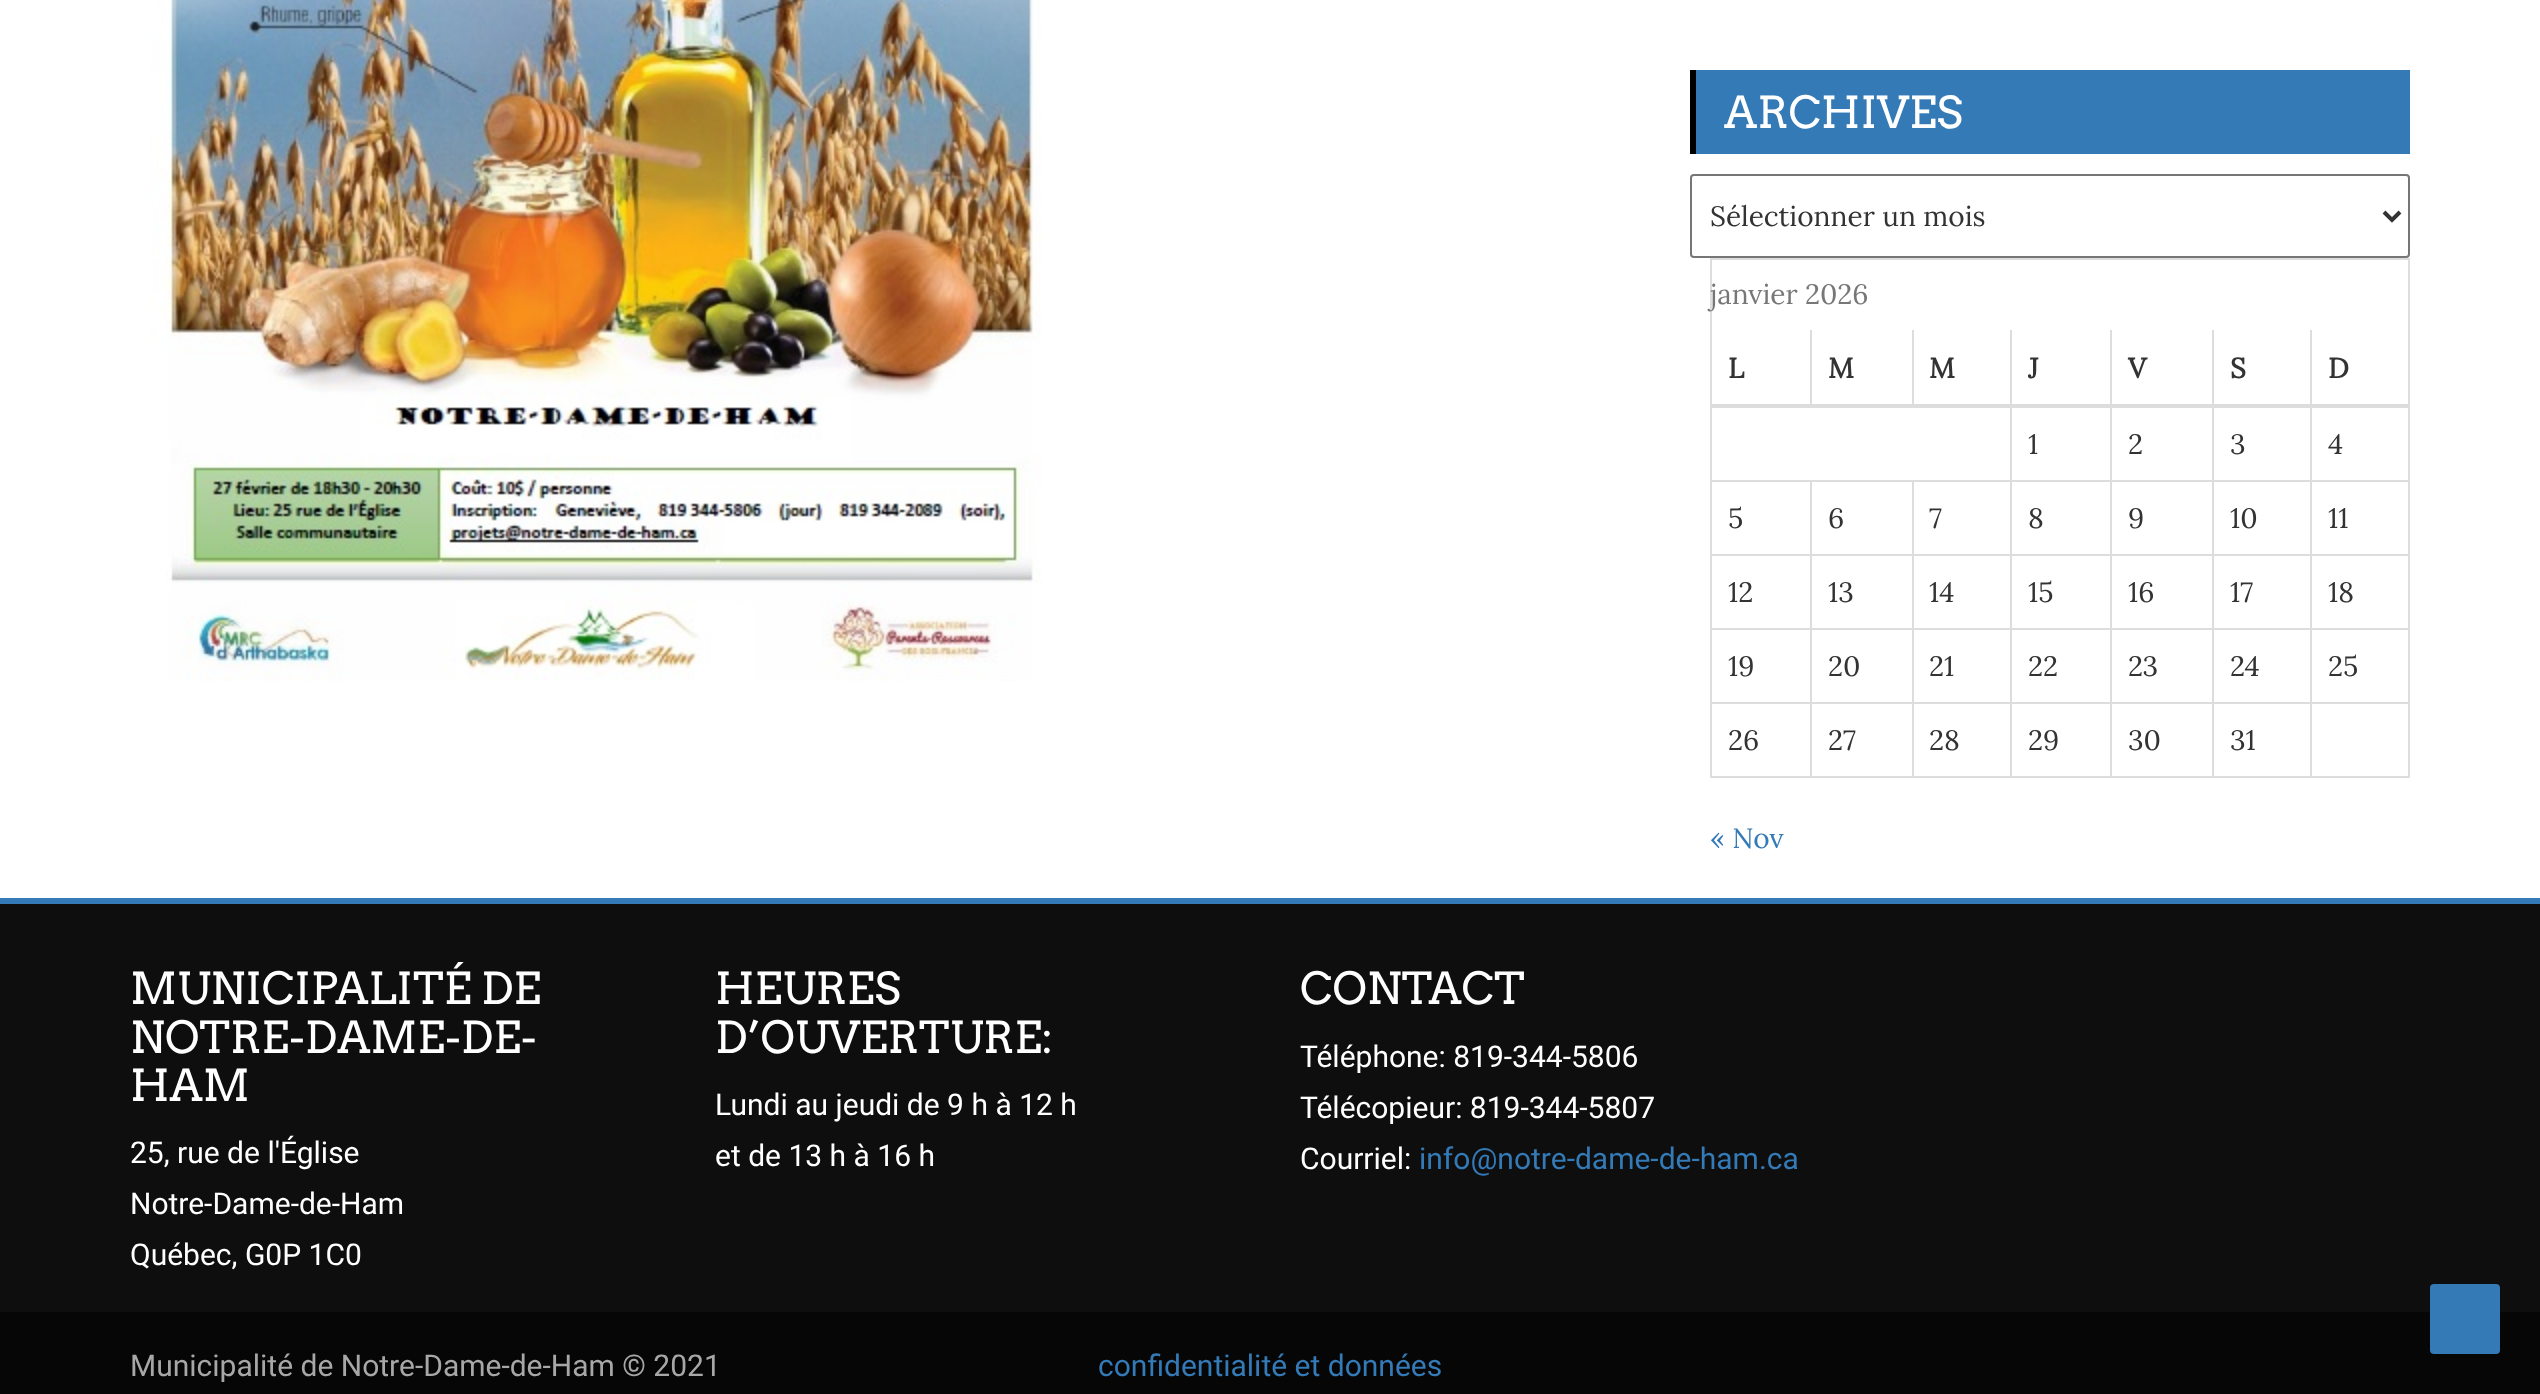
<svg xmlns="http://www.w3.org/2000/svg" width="2540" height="1394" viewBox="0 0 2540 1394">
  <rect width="100%" height="100%" fill="rgb(255,255,255)"/>
  <image x="150" y="0" width="892" height="681" href="pic1.png"/>
  <rect x="1696" y="70" width="714" height="84" fill="rgb(51,122,183)"/>
  <rect x="1690" y="70" width="6" height="84" fill="rgb(0,0,0)"/>
  <text x="1724" y="128" font-family="Arvo" font-size="44" fill="rgb(255,255,255)">ARCHIVES</text>
  <rect x="1691" y="175" width="718" height="82" rx="3" fill="none" stroke="rgb(118,118,118)" stroke-width="2"/>
  <path d="M2384 212L2392 220L2400 212" fill="none" stroke="rgb(51,51,51)" stroke-width="4"/>
  <text x="1710" y="226" font-family="Lora" font-size="28" fill="rgb(51,51,51)">Sélectionner un mois</text>
  <rect x="1710" y="258" width="700" height="2" fill="rgb(221,221,221)"/>
  <rect x="2408" y="258" width="2" height="520" fill="rgb(221,221,221)"/>
  <rect x="1710" y="776" width="700" height="2" fill="rgb(221,221,221)"/>
  <rect x="1710" y="258" width="2" height="520" fill="rgb(221,221,221)"/>
  <text x="1710" y="304" font-family="Lora" font-size="28" fill="rgb(119,119,119)">janvier 2026</text>
  <text x="1728" y="378" font-family="Lora" font-size="28" font-weight="bold" fill="rgb(51,51,51)">L</text>
  <rect x="1810" y="330" width="2" height="78" fill="rgb(221,221,221)"/>
  <text x="1828" y="378" font-family="Lora" font-size="28" font-weight="bold" fill="rgb(51,51,51)">M</text>
  <rect x="1912" y="330" width="2" height="78" fill="rgb(221,221,221)"/>
  <g font-family="Lora" font-size="28" font-weight="bold" fill="rgb(51,51,51)">
    <text x="1929" y="378">M</text>
    <text x="2028" y="378">J</text>
    <text x="2128" y="378">V</text>
    <text x="2230" y="378">S</text>
  </g>
  <rect x="2310" y="480" width="100" height="2" fill="rgb(221,221,221)"/>
  <rect x="2310" y="554" width="100" height="2" fill="rgb(221,221,221)"/>
  <rect x="2310" y="628" width="100" height="2" fill="rgb(221,221,221)"/>
  <rect x="2310" y="702" width="100" height="2" fill="rgb(221,221,221)"/>
  <rect x="2310" y="702" width="2" height="76" fill="rgb(221,221,221)"/>
  <rect x="2212" y="702" width="100" height="2" fill="rgb(221,221,221)"/>
  <rect x="2310" y="628" width="2" height="76" fill="rgb(221,221,221)"/>
  <rect x="2212" y="628" width="100" height="2" fill="rgb(221,221,221)"/>
  <rect x="2310" y="554" width="2" height="76" fill="rgb(221,221,221)"/>
  <rect x="2212" y="554" width="100" height="2" fill="rgb(221,221,221)"/>
  <rect x="2310" y="480" width="2" height="76" fill="rgb(221,221,221)"/>
  <rect x="2212" y="480" width="100" height="2" fill="rgb(221,221,221)"/>
  <rect x="2212" y="702" width="2" height="76" fill="rgb(221,221,221)"/>
  <rect x="2110" y="702" width="104" height="2" fill="rgb(221,221,221)"/>
  <rect x="2212" y="628" width="2" height="76" fill="rgb(221,221,221)"/>
  <rect x="2110" y="628" width="104" height="2" fill="rgb(221,221,221)"/>
  <rect x="2212" y="554" width="2" height="76" fill="rgb(221,221,221)"/>
  <rect x="2110" y="554" width="104" height="2" fill="rgb(221,221,221)"/>
  <rect x="2212" y="480" width="2" height="76" fill="rgb(221,221,221)"/>
  <rect x="2110" y="480" width="104" height="2" fill="rgb(221,221,221)"/>
  <rect x="2110" y="702" width="2" height="76" fill="rgb(221,221,221)"/>
  <rect x="2010" y="702" width="102" height="2" fill="rgb(221,221,221)"/>
  <rect x="2110" y="628" width="2" height="76" fill="rgb(221,221,221)"/>
  <rect x="2010" y="628" width="102" height="2" fill="rgb(221,221,221)"/>
  <rect x="2110" y="554" width="2" height="76" fill="rgb(221,221,221)"/>
  <rect x="2010" y="554" width="102" height="2" fill="rgb(221,221,221)"/>
  <rect x="2110" y="480" width="2" height="76" fill="rgb(221,221,221)"/>
  <rect x="2010" y="480" width="102" height="2" fill="rgb(221,221,221)"/>
  <rect x="2010" y="702" width="2" height="76" fill="rgb(221,221,221)"/>
  <rect x="1912" y="702" width="100" height="2" fill="rgb(221,221,221)"/>
  <rect x="2010" y="628" width="2" height="76" fill="rgb(221,221,221)"/>
  <rect x="1912" y="628" width="100" height="2" fill="rgb(221,221,221)"/>
  <rect x="2010" y="554" width="2" height="76" fill="rgb(221,221,221)"/>
  <rect x="1912" y="554" width="100" height="2" fill="rgb(221,221,221)"/>
  <rect x="2010" y="480" width="2" height="76" fill="rgb(221,221,221)"/>
  <rect x="1912" y="480" width="100" height="2" fill="rgb(221,221,221)"/>
  <rect x="2010" y="330" width="2" height="152" fill="rgb(221,221,221)"/>
  <rect x="2110" y="330" width="2" height="152" fill="rgb(221,221,221)"/>
  <rect x="2212" y="330" width="2" height="152" fill="rgb(221,221,221)"/>
  <rect x="2310" y="330" width="2" height="152" fill="rgb(221,221,221)"/>
  <rect x="1710" y="404" width="700" height="4" fill="rgb(221,221,221)"/>
  <text x="2328" y="378" font-family="Lora" font-size="28" font-weight="bold" fill="rgb(51,51,51)">D</text>
  <g font-family="Lora" font-size="28" fill="rgb(51,51,51)">
    <text x="2028" y="454">1</text>
    <text x="2128" y="454">2</text>
    <text x="2230" y="454">3</text>
    <text x="2328" y="454">4</text>
  </g>
  <rect x="1912" y="702" width="2" height="76" fill="rgb(221,221,221)"/>
  <rect x="1810" y="702" width="104" height="2" fill="rgb(221,221,221)"/>
  <rect x="1912" y="628" width="2" height="76" fill="rgb(221,221,221)"/>
  <rect x="1810" y="628" width="104" height="2" fill="rgb(221,221,221)"/>
  <rect x="1912" y="554" width="2" height="76" fill="rgb(221,221,221)"/>
  <rect x="1810" y="554" width="104" height="2" fill="rgb(221,221,221)"/>
  <rect x="1912" y="480" width="2" height="76" fill="rgb(221,221,221)"/>
  <rect x="1810" y="480" width="104" height="2" fill="rgb(221,221,221)"/>
  <rect x="1810" y="702" width="2" height="76" fill="rgb(221,221,221)"/>
  <rect x="1710" y="702" width="102" height="2" fill="rgb(221,221,221)"/>
  <rect x="1810" y="628" width="2" height="76" fill="rgb(221,221,221)"/>
  <rect x="1710" y="628" width="102" height="2" fill="rgb(221,221,221)"/>
  <rect x="1810" y="554" width="2" height="76" fill="rgb(221,221,221)"/>
  <rect x="1710" y="554" width="102" height="2" fill="rgb(221,221,221)"/>
  <rect x="1810" y="480" width="2" height="76" fill="rgb(221,221,221)"/>
  <rect x="1710" y="480" width="102" height="2" fill="rgb(221,221,221)"/>
  <g font-family="Lora" font-size="28" fill="rgb(51,51,51)">
    <text x="1728" y="528">5</text>
    <text x="1828" y="528">6</text>
    <text x="1929" y="528">7</text>
    <text x="2028" y="528">8</text>
    <text x="2128" y="528">9</text>
    <text x="2230" y="528">10</text>
    <text x="2328" y="528">11</text>
    <text x="1728" y="602">12</text>
    <text x="1828" y="602">13</text>
    <text x="1929" y="602">14</text>
    <text x="2028" y="602">15</text>
    <text x="2128" y="602">16</text>
    <text x="2230" y="602">17</text>
    <text x="2328" y="602">18</text>
    <text x="1728" y="676">19</text>
    <text x="1828" y="676">20</text>
    <text x="1929" y="676">21</text>
    <text x="2028" y="676">22</text>
    <text x="2128" y="676">23</text>
    <text x="2230" y="676">24</text>
    <text x="2328" y="676">25</text>
    <text x="1728" y="750">26</text>
    <text x="1828" y="750">27</text>
    <text x="1929" y="750">28</text>
    <text x="2028" y="750">29</text>
    <text x="2128" y="750">30</text>
    <text x="2230" y="750">31</text>
  </g>
  <text x="1710" y="848" font-family="Lora" font-size="28" fill="rgb(51,122,183)">« Nov</text>
  <rect x="0" y="904" width="2540" height="408" fill="rgb(14,14,14)"/>
  <rect x="0" y="898" width="2540" height="6" fill="rgb(51,122,183)"/>
  <g font-family="Arvo" font-size="44" fill="rgb(255,255,255)">
    <text>
      <tspan x="130" y="1004">MUNICIPALITÉ DE</tspan>
      <tspan x="130" y="1053">NOTRE-DAME-DE-</tspan>
      <tspan x="130" y="1101">HAM</tspan>
    </text>
  </g>
  <g font-family="Roboto" font-size="30" fill="rgb(255,255,255)">
    <text>
      <tspan x="130" y="1163">25, rue de l'Église</tspan>
      <tspan x="130" y="1214">Notre-Dame-de-Ham</tspan>
      <tspan x="130" y="1265">Québec, G0P 1C0</tspan>
    </text>
  </g>
  <g font-family="Arvo" font-size="44" fill="rgb(255,255,255)">
    <text>
      <tspan x="715" y="1004">HEURES</tspan>
      <tspan x="715" y="1053">D’OUVERTURE:</tspan>
    </text>
  </g>
  <g font-family="Roboto" font-size="30" fill="rgb(255,255,255)">
    <text>
      <tspan x="715" y="1115">Lundi au jeudi de 9 h à 12 h</tspan>
      <tspan x="715" y="1166">et de 13 h à 16 h</tspan>
    </text>
  </g>
  <text x="1300" y="1004" font-family="Arvo" font-size="44" fill="rgb(255,255,255)">CONTACT</text>
  <g font-family="Roboto" font-size="30" fill="rgb(255,255,255)">
    <text>
      <tspan x="1300" y="1067">Téléphone: 819-344-5806</tspan>
      <tspan x="1300" y="1118">Télécopieur: 819-344-5807</tspan>
      <tspan x="1300" y="1169">Courriel:</tspan>
    </text>
  </g>
  <text x="1419" y="1169" font-family="Roboto" font-size="30" fill="rgb(51,122,183)">info@notre-dame-de-ham.ca</text>
  <rect x="0" y="1312" width="2540" height="82" fill="rgb(6,6,6)"/>
  <rect x="2430" y="1284" width="70" height="70" rx="4" fill="rgb(51,122,183)"/>
  <text x="130" y="1376" font-family="Roboto" font-size="30" fill="rgb(167,167,167)">Municipalité de Notre-Dame-de-Ham © 2021</text>
  <text x="1098" y="1376" font-family="Roboto" font-size="30" fill="rgb(51,122,183)">confidentialité et données</text>
</svg>
